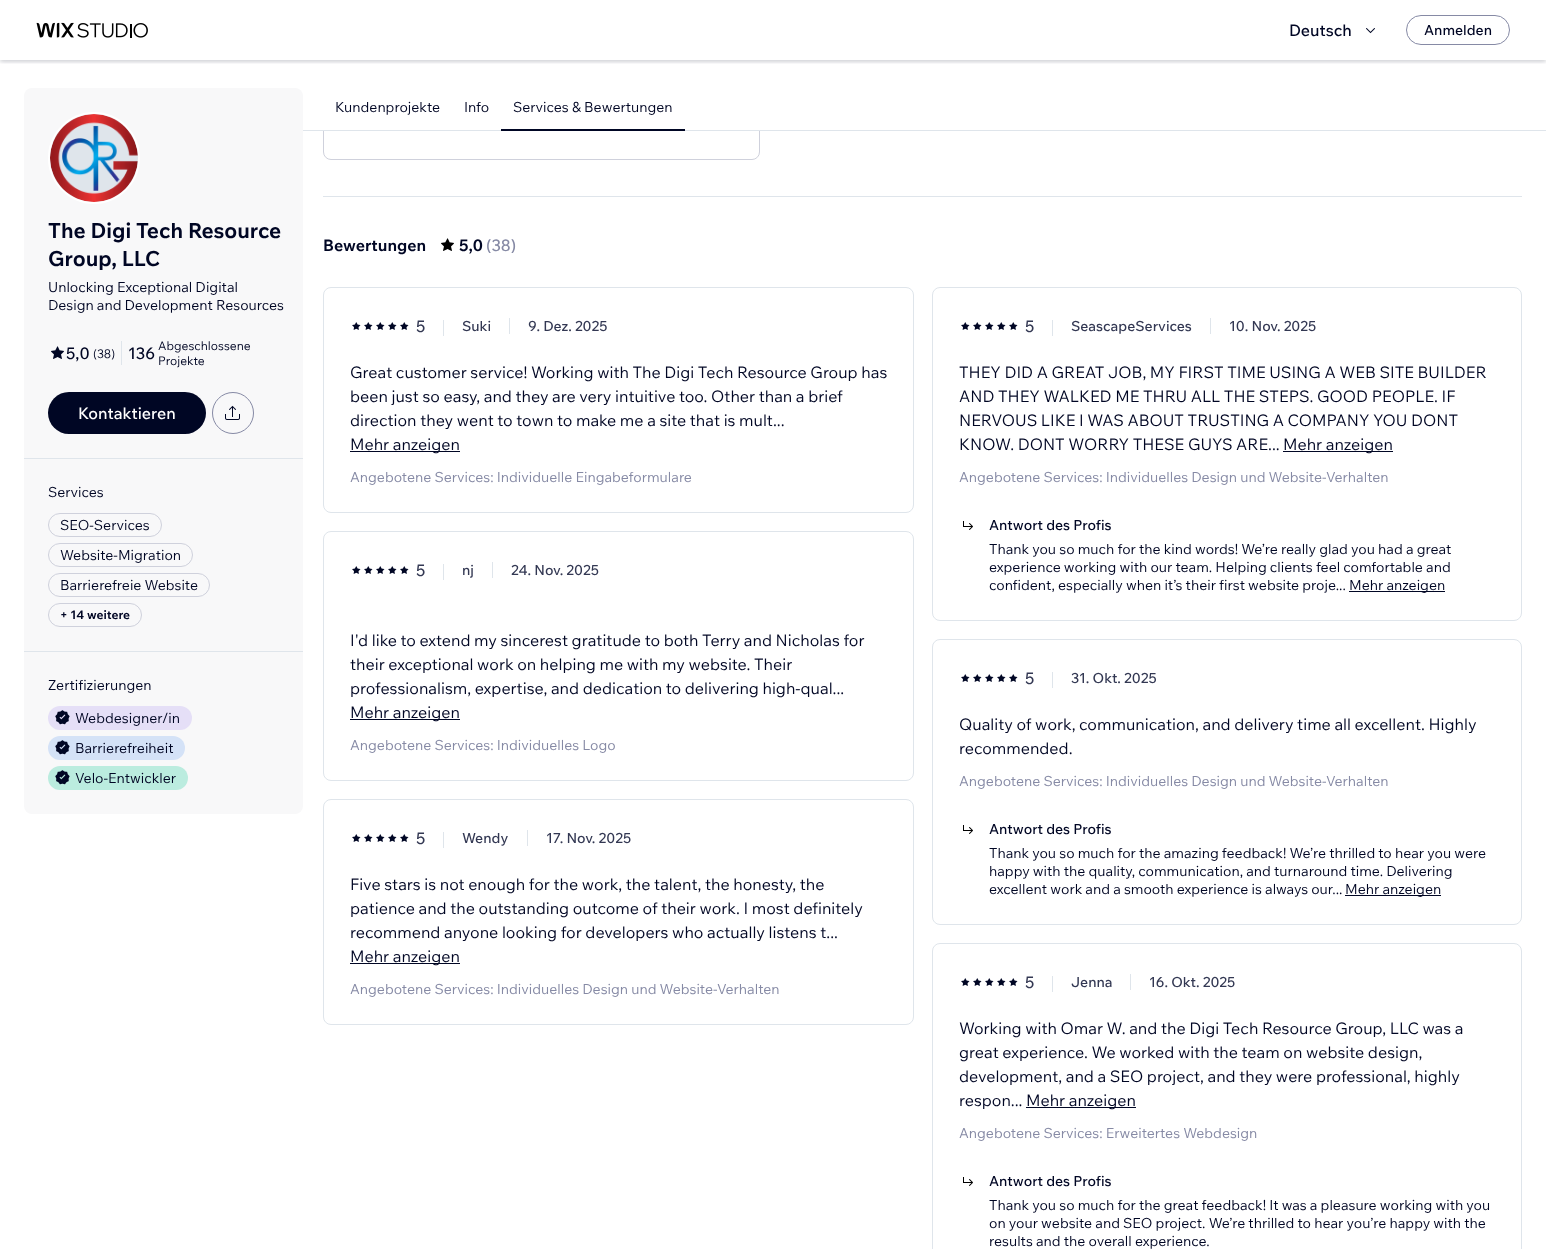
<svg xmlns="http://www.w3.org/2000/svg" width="1546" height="1249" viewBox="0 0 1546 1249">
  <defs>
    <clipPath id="clip1"><rect x="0" y="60" width="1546" height="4"/></clipPath>
    <clipPath id="clip2"><rect x="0" y="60" width="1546" height="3"/></clipPath>
  </defs>
  <rect width="100%" height="100%" fill="rgb(255,255,255)"/>
  <g clip-path="url(#clip1)">
    <rect x="0" y="2" width="1546" height="60" fill="rgba(0,6,36,0.12)" filter="blur(2px)"/>
  </g>
  <g clip-path="url(#clip2)">
    <rect x="0" y="0" width="1546" height="60" fill="rgba(0,6,36,0.12)" filter="blur(3px)"/>
  </g>
  <image x="36" y="22" width="38" height="16" href="pic1.png"/>
  <image x="77" y="23" width="71" height="15" href="pic2.png"/>
  <text x="1289" y="36" font-family="Wix Madefor Text" font-size="16" font-weight="500" fill="rgb(0,6,36)">Deutsch</text>
  <image x="1366" y="28" width="9" height="6" href="pic3.png"/>
  <rect x="1406.5" y="15.5" width="103" height="29" rx="14.5" fill="none" stroke="rgb(134,138,165)"/>
  <text x="1424" y="35" font-family="Wix Madefor Text" font-size="14" font-weight="500" fill="rgb(0,6,36)">Anmelden</text>
  <rect x="24" y="88" width="279" height="726" rx="8" fill="rgb(248,248,249)"/>
  <circle cx="94" cy="158" r="45" fill="rgb(223,229,235)" stroke="rgb(255,255,255)" stroke-width="2"/>
  <image x="50" y="114" width="88" height="88" href="pic4.png"/>
  <g font-family="Wix Madefor Text" font-size="21" font-weight="bold" fill="rgb(0,6,36)">
    <text>
      <tspan x="48" y="238">The Digi Tech Resource</tspan>
      <tspan x="48" y="266">Group, LLC</tspan>
    </text>
  </g>
  <g font-family="Wix Madefor Text" font-size="14" fill="rgb(0,6,36)">
    <text>
      <tspan x="48" y="292">Unlocking Exceptional Digital</tspan>
      <tspan x="48" y="310">Design and Development Resources</tspan>
    </text>
  </g>
  <image x="51" y="346" width="13" height="13" href="pic5.png"/>
  <text x="66" y="359" font-family="Wix Madefor Text" font-size="16" font-weight="500" fill="rgb(0,6,36)">5,0</text>
  <text x="93" y="358" font-family="Wix Madefor Text" font-size="12" fill="rgb(0,6,36)">(38)</text>
  <rect x="121" y="341" width="1" height="24" fill="rgb(223,229,235)"/>
  <text x="128" y="359" font-family="Wix Madefor Text" font-size="16" font-weight="500" fill="rgb(0,6,36)">136</text>
  <g font-family="Wix Madefor Text" font-size="12" fill="rgb(0,6,36)">
    <text>
      <tspan x="158" y="350">Abgeschlossene</tspan>
      <tspan x="158" y="365">Projekte</tspan>
    </text>
  </g>
  <rect x="48" y="392" width="158" height="42" rx="21" fill="rgb(0,6,36)"/>
  <text x="78" y="419" font-family="Wix Madefor Text" font-size="16" font-weight="500" fill="rgb(255,255,255)">Kontaktieren</text>
  <circle cx="233" cy="413" r="20.5" fill="none" stroke="rgb(134,138,165)"/>
  <image x="225" y="405" width="15" height="15" href="pic6.png"/>
  <rect x="24" y="458" width="279" height="1" fill="rgb(223,229,235)"/>
  <text x="48" y="497" font-family="Wix Madefor Text" font-size="14" fill="rgb(0,6,36)">Services</text>
  <rect x="48.5" y="513.5" width="113" height="23" rx="11.5" fill="none" stroke="rgb(207,209,220)"/>
  <text x="60" y="530" font-family="Wix Madefor Text" font-size="14" fill="rgb(0,6,36)">SEO-Services</text>
  <rect x="48.5" y="543.5" width="144" height="23" rx="11.5" fill="none" stroke="rgb(207,209,220)"/>
  <text x="60" y="560" font-family="Wix Madefor Text" font-size="14" fill="rgb(0,6,36)">Website-Migration</text>
  <rect x="48.5" y="573.5" width="161" height="23" rx="11.5" fill="none" stroke="rgb(207,209,220)"/>
  <text x="60" y="590" font-family="Wix Madefor Text" font-size="14" fill="rgb(0,6,36)">Barrierefreie Website</text>
  <rect x="48.5" y="603.5" width="93" height="23" rx="11.5" fill="none" stroke="rgb(207,209,220)"/>
  <text x="60" y="619" font-family="Wix Madefor Text" font-size="12" font-weight="bold" fill="rgb(0,6,36)">+ 14 weitere</text>
  <rect x="24" y="651" width="279" height="1" fill="rgb(223,229,235)"/>
  <text x="48" y="690" font-family="Wix Madefor Text" font-size="14" fill="rgb(0,6,36)">Zertifizierungen</text>
  <rect x="48" y="706" width="144" height="24" rx="12" fill="rgb(229,223,247)"/>
  <image x="55" y="710" width="15" height="15" href="pic7.png"/>
  <text x="75" y="723" font-family="Wix Madefor Text" font-size="14" fill="rgb(0,6,36)">Webdesigner/in</text>
  <rect x="48" y="736" width="137" height="24" rx="12" fill="rgb(212,226,247)"/>
  <image x="55" y="740" width="15" height="15" href="pic8.png"/>
  <text x="75" y="753" font-family="Wix Madefor Text" font-size="14" fill="rgb(0,6,36)">Barrierefreiheit</text>
  <rect x="48" y="766" width="140" height="24" rx="12" fill="rgb(187,236,223)"/>
  <image x="55" y="770" width="15" height="15" href="pic9.png"/>
  <text x="75" y="783" font-family="Wix Madefor Text" font-size="14" fill="rgb(0,6,36)">Velo-Entwickler</text>
  <rect x="323.5" y="98.5" width="436" height="61" rx="7.5" fill="none" stroke="rgb(207,209,220)"/>
  <rect x="323" y="98" width="437" height="32" fill="rgb(255,255,255)"/>
  <g font-family="Wix Madefor Text" font-size="14" fill="rgb(0,6,36)">
    <text x="335" y="112">Kundenprojekte</text>
    <text x="464" y="112">Info</text>
    <text x="513" y="112">Services &amp; Bewertungen</text>
  </g>
  <rect x="303" y="130" width="1243" height="1" fill="rgb(223,229,235)"/>
  <rect x="501" y="129" width="184" height="2" fill="rgb(0,6,36)"/>
  <rect x="323" y="196" width="1199" height="1" fill="rgb(223,229,235)"/>
  <text x="323" y="251" font-family="Wix Madefor Text" font-size="16" font-weight="bold" fill="rgb(0,6,36)">Bewertungen</text>
  <image x="441" y="238" width="13" height="13" href="pic10.png"/>
  <text x="459" y="251" font-family="Wix Madefor Text" font-size="16" font-weight="bold" fill="rgb(0,6,36)">5,0</text>
  <text x="486" y="251" font-family="Wix Madefor Text" font-size="16" font-weight="500" fill="rgb(134,138,165)">(38)</text>
  <rect x="323.5" y="287.5" width="590" height="225" rx="7.5" fill="none" stroke="rgb(223,229,235)"/>
  <image x="352" y="322" width="9" height="8" href="pic11.png"/>
  <image x="364" y="322" width="9" height="8" href="pic11.png"/>
  <image x="376" y="322" width="9" height="8" href="pic11.png"/>
  <image x="388" y="322" width="9" height="8" href="pic11.png"/>
  <image x="400" y="322" width="9" height="8" href="pic11.png"/>
  <text x="416" y="332" font-family="Wix Madefor Text" font-size="16" font-weight="500" fill="rgb(51,56,83)">5</text>
  <rect x="443" y="320" width="1" height="16" fill="rgb(223,229,235)"/>
  <text x="462" y="331" font-family="Wix Madefor Text" font-size="14" font-weight="500" fill="rgb(51,56,83)">Suki</text>
  <rect x="509" y="318" width="1" height="16" fill="rgb(223,229,235)"/>
  <text x="528" y="331" font-family="Wix Madefor Text" font-size="14" font-weight="500" fill="rgb(51,56,83)">9. Dez. 2025</text>
  <g font-family="Wix Madefor Text" font-size="16" fill="rgb(0,6,36)">
    <text>
      <tspan x="350" y="378">Great customer service! Working with The Digi Tech Resource Group has</tspan>
      <tspan x="350" y="402">been just so easy, and they are very intuitive too. Other than a brief</tspan>
      <tspan x="350" y="426">direction they went to town to make me a site that is mult...</tspan>
    </text>
  </g>
  <rect x="350" y="451" width="110" height="1" fill="rgb(0,6,36)"/>
  <text x="350" y="450" font-family="Wix Madefor Text" font-size="16" fill="rgb(0,6,36)">Mehr anzeigen</text>
  <text x="350" y="482" font-family="Wix Madefor Text" font-size="14" fill="rgb(134,138,165)">Angebotene Services: Individuelle Eingabeformulare</text>
  <rect x="323.5" y="531.5" width="590" height="249" rx="7.5" fill="none" stroke="rgb(223,229,235)"/>
  <image x="352" y="566" width="9" height="8" href="pic11.png"/>
  <image x="364" y="566" width="9" height="8" href="pic11.png"/>
  <image x="376" y="566" width="9" height="8" href="pic11.png"/>
  <image x="388" y="566" width="9" height="8" href="pic11.png"/>
  <image x="400" y="566" width="9" height="8" href="pic11.png"/>
  <text x="416" y="576" font-family="Wix Madefor Text" font-size="16" font-weight="500" fill="rgb(51,56,83)">5</text>
  <rect x="443" y="564" width="1" height="16" fill="rgb(223,229,235)"/>
  <text x="462" y="575" font-family="Wix Madefor Text" font-size="14" font-weight="500" fill="rgb(51,56,83)">nj</text>
  <rect x="492" y="562" width="1" height="16" fill="rgb(223,229,235)"/>
  <text x="511" y="575" font-family="Wix Madefor Text" font-size="14" font-weight="500" fill="rgb(51,56,83)">24. Nov. 2025</text>
  <g font-family="Wix Madefor Text" font-size="16" fill="rgb(0,6,36)">
    <text>
      <tspan x="350" y="646">I'd like to extend my sincerest gratitude to both Terry and Nicholas for</tspan>
      <tspan x="350" y="670">their exceptional work on helping me with my website. Their</tspan>
      <tspan x="350" y="694">professionalism, expertise, and dedication to delivering high-qual...</tspan>
    </text>
  </g>
  <rect x="350" y="719" width="110" height="1" fill="rgb(0,6,36)"/>
  <text x="350" y="718" font-family="Wix Madefor Text" font-size="16" fill="rgb(0,6,36)">Mehr anzeigen</text>
  <text x="350" y="750" font-family="Wix Madefor Text" font-size="14" fill="rgb(134,138,165)">Angebotene Services: Individuelles Logo</text>
  <rect x="323.5" y="799.5" width="590" height="225" rx="7.5" fill="none" stroke="rgb(223,229,235)"/>
  <image x="352" y="834" width="9" height="8" href="pic11.png"/>
  <image x="364" y="834" width="9" height="8" href="pic11.png"/>
  <image x="376" y="834" width="9" height="8" href="pic11.png"/>
  <image x="388" y="834" width="9" height="8" href="pic11.png"/>
  <image x="400" y="834" width="9" height="8" href="pic11.png"/>
  <text x="416" y="844" font-family="Wix Madefor Text" font-size="16" font-weight="500" fill="rgb(51,56,83)">5</text>
  <rect x="443" y="832" width="1" height="16" fill="rgb(223,229,235)"/>
  <text x="462" y="843" font-family="Wix Madefor Text" font-size="14" font-weight="500" fill="rgb(51,56,83)">Wendy</text>
  <rect x="527" y="830" width="1" height="16" fill="rgb(223,229,235)"/>
  <text x="546" y="843" font-family="Wix Madefor Text" font-size="14" font-weight="500" fill="rgb(51,56,83)">17. Nov. 2025</text>
  <g font-family="Wix Madefor Text" font-size="16" fill="rgb(0,6,36)">
    <text>
      <tspan x="350" y="890">Five stars is not enough for the work, the talent, the honesty, the</tspan>
      <tspan x="350" y="914">patience and the outstanding outcome of their work. I most definitely</tspan>
      <tspan x="350" y="938">recommend anyone looking for developers who actually listens t...</tspan>
    </text>
  </g>
  <rect x="350" y="963" width="110" height="1" fill="rgb(0,6,36)"/>
  <text x="350" y="962" font-family="Wix Madefor Text" font-size="16" fill="rgb(0,6,36)">Mehr anzeigen</text>
  <text x="350" y="994" font-family="Wix Madefor Text" font-size="14" fill="rgb(134,138,165)">Angebotene Services: Individuelles Design und Website-Verhalten</text>
  <rect x="932.5" y="287.5" width="589" height="333" rx="7.5" fill="none" stroke="rgb(223,229,235)"/>
  <image x="961" y="322" width="9" height="8" href="pic11.png"/>
  <image x="973" y="322" width="9" height="8" href="pic11.png"/>
  <image x="985" y="322" width="9" height="8" href="pic11.png"/>
  <image x="997" y="322" width="9" height="8" href="pic11.png"/>
  <image x="1009" y="322" width="9" height="8" href="pic11.png"/>
  <text x="1025" y="332" font-family="Wix Madefor Text" font-size="16" font-weight="500" fill="rgb(51,56,83)">5</text>
  <rect x="1052" y="320" width="1" height="16" fill="rgb(223,229,235)"/>
  <text x="1071" y="331" font-family="Wix Madefor Text" font-size="14" font-weight="500" fill="rgb(51,56,83)">SeascapeServices</text>
  <rect x="1210" y="318" width="1" height="16" fill="rgb(223,229,235)"/>
  <text x="1229" y="331" font-family="Wix Madefor Text" font-size="14" font-weight="500" fill="rgb(51,56,83)">10. Nov. 2025</text>
  <g font-family="Wix Madefor Text" font-size="16" fill="rgb(0,6,36)">
    <text>
      <tspan x="959" y="378">THEY DID A GREAT JOB, MY FIRST TIME USING A WEB SITE BUILDER</tspan>
      <tspan x="959" y="402">AND THEY WALKED ME THRU ALL THE STEPS. GOOD PEOPLE. IF</tspan>
      <tspan x="959" y="426">NERVOUS LIKE I WAS ABOUT TRUSTING A COMPANY YOU DONT</tspan>
      <tspan x="959" y="450">KNOW. DONT WORRY THESE GUYS ARE...</tspan>
    </text>
  </g>
  <rect x="1283" y="451" width="110" height="1" fill="rgb(0,6,36)"/>
  <text x="1283" y="450" font-family="Wix Madefor Text" font-size="16" fill="rgb(0,6,36)">Mehr anzeigen</text>
  <text x="959" y="482" font-family="Wix Madefor Text" font-size="14" fill="rgb(134,138,165)">Angebotene Services: Individuelles Design und Website-Verhalten</text>
  <image x="963" y="521" width="10" height="9" href="pic12.png"/>
  <text x="989" y="530" font-family="Wix Madefor Text" font-size="14" font-weight="500" fill="rgb(0,6,36)">Antwort des Profis</text>
  <g font-family="Wix Madefor Text" font-size="14" fill="rgb(0,6,36)">
    <text>
      <tspan x="989" y="554">Thank you so much for the kind words! We’re really glad you had a great</tspan>
      <tspan x="989" y="572">experience working with our team. Helping clients feel comfortable and</tspan>
      <tspan x="989" y="590">confident, especially when it’s their first website proje...</tspan>
    </text>
  </g>
  <rect x="1349" y="591" width="96" height="1" fill="rgb(0,6,36)"/>
  <text x="1349" y="590" font-family="Wix Madefor Text" font-size="14" fill="rgb(0,6,36)">Mehr anzeigen</text>
  <rect x="932.5" y="639.5" width="589" height="285" rx="7.5" fill="none" stroke="rgb(223,229,235)"/>
  <image x="961" y="674" width="9" height="8" href="pic11.png"/>
  <image x="973" y="674" width="9" height="8" href="pic11.png"/>
  <image x="985" y="674" width="9" height="8" href="pic11.png"/>
  <image x="997" y="674" width="9" height="8" href="pic11.png"/>
  <image x="1009" y="674" width="9" height="8" href="pic11.png"/>
  <text x="1025" y="684" font-family="Wix Madefor Text" font-size="16" font-weight="500" fill="rgb(51,56,83)">5</text>
  <rect x="1052" y="672" width="1" height="16" fill="rgb(223,229,235)"/>
  <text x="1071" y="683" font-family="Wix Madefor Text" font-size="14" font-weight="500" fill="rgb(51,56,83)">31. Okt. 2025</text>
  <g font-family="Wix Madefor Text" font-size="16" fill="rgb(0,6,36)">
    <text>
      <tspan x="959" y="730">Quality of work, communication, and delivery time all excellent. Highly</tspan>
      <tspan x="959" y="754">recommended.</tspan>
    </text>
  </g>
  <text x="959" y="786" font-family="Wix Madefor Text" font-size="14" fill="rgb(134,138,165)">Angebotene Services: Individuelles Design und Website-Verhalten</text>
  <image x="963" y="825" width="10" height="9" href="pic12.png"/>
  <text x="989" y="834" font-family="Wix Madefor Text" font-size="14" font-weight="500" fill="rgb(0,6,36)">Antwort des Profis</text>
  <g font-family="Wix Madefor Text" font-size="14" fill="rgb(0,6,36)">
    <text>
      <tspan x="989" y="858">Thank you so much for the amazing feedback! We’re thrilled to hear you were</tspan>
      <tspan x="989" y="876">happy with the quality, communication, and turnaround time. Delivering</tspan>
      <tspan x="989" y="894">excellent work and a smooth experience is always our...</tspan>
    </text>
  </g>
  <rect x="1345" y="895" width="96" height="1" fill="rgb(0,6,36)"/>
  <text x="1345" y="894" font-family="Wix Madefor Text" font-size="14" fill="rgb(0,6,36)">Mehr anzeigen</text>
  <rect x="932.5" y="943.5" width="589" height="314" rx="7.5" fill="none" stroke="rgb(223,229,235)"/>
  <image x="961" y="978" width="9" height="8" href="pic11.png"/>
  <image x="973" y="978" width="9" height="8" href="pic11.png"/>
  <image x="985" y="978" width="9" height="8" href="pic11.png"/>
  <image x="997" y="978" width="9" height="8" href="pic11.png"/>
  <image x="1009" y="978" width="9" height="8" href="pic11.png"/>
  <text x="1025" y="988" font-family="Wix Madefor Text" font-size="16" font-weight="500" fill="rgb(51,56,83)">5</text>
  <rect x="1052" y="976" width="1" height="16" fill="rgb(223,229,235)"/>
  <text x="1071" y="987" font-family="Wix Madefor Text" font-size="14" font-weight="500" fill="rgb(51,56,83)">Jenna</text>
  <rect x="1130" y="974" width="1" height="16" fill="rgb(223,229,235)"/>
  <text x="1149" y="987" font-family="Wix Madefor Text" font-size="14" font-weight="500" fill="rgb(51,56,83)">16. Okt. 2025</text>
  <g font-family="Wix Madefor Text" font-size="16" fill="rgb(0,6,36)">
    <text>
      <tspan x="959" y="1034">Working with Omar W. and the Digi Tech Resource Group, LLC was a</tspan>
      <tspan x="959" y="1058">great experience. We worked with the team on website design,</tspan>
      <tspan x="959" y="1082">development, and a SEO project, and they were professional, highly</tspan>
      <tspan x="959" y="1106">respon...</tspan>
    </text>
  </g>
  <rect x="1026" y="1107" width="110" height="1" fill="rgb(0,6,36)"/>
  <text x="1026" y="1106" font-family="Wix Madefor Text" font-size="16" fill="rgb(0,6,36)">Mehr anzeigen</text>
  <text x="959" y="1138" font-family="Wix Madefor Text" font-size="14" fill="rgb(134,138,165)">Angebotene Services: Erweitertes Webdesign</text>
  <image x="963" y="1177" width="10" height="9" href="pic12.png"/>
  <text x="989" y="1186" font-family="Wix Madefor Text" font-size="14" font-weight="500" fill="rgb(0,6,36)">Antwort des Profis</text>
  <g font-family="Wix Madefor Text" font-size="14" fill="rgb(0,6,36)">
    <text>
      <tspan x="989" y="1210">Thank you so much for the great feedback! It was a pleasure working with you</tspan>
      <tspan x="989" y="1228">on your website and SEO project. We’re thrilled to hear you’re happy with the</tspan>
      <tspan x="989" y="1246">results and the overall experience.</tspan>
    </text>
  </g>
</svg>
